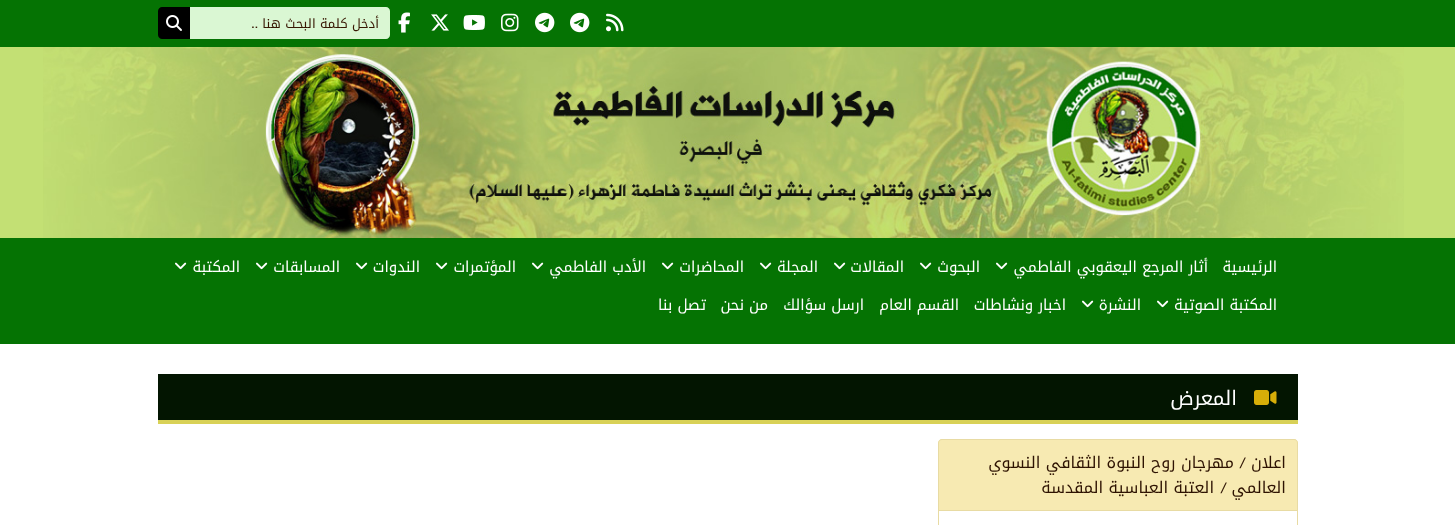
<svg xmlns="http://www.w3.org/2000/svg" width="1455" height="525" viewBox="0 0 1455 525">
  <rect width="100%" height="100%" fill="rgb(255,255,255)"/>
  <rect x="0" y="0" width="1455" height="47" fill="rgb(5,115,3)"/>
  <image x="606" y="13" width="18" height="19" href="pic1.png"/>
  <image x="570" y="12" width="20" height="21" href="pic2.png"/>
  <image x="535" y="12" width="20" height="21" href="pic2.png"/>
  <image x="501" y="13" width="18" height="19" href="pic3.png"/>
  <image x="463" y="15" width="22" height="15" href="pic4.png"/>
  <image x="431" y="14" width="18" height="17" href="pic5.png"/>
  <image x="398" y="12" width="12" height="21" href="pic6.png"/>
  <path d="M190 7H386C388 7 390 9 390 11V35C390 37 388 39 386 39H190Z" fill="rgb(218,247,211)"/>
  <text x="379" y="28" font-family="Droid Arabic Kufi" font-size="13" direction="rtl" fill="rgb(55,23,2)">أدخل كلمة البحث هنا</text>
  <text x="258" y="28" font-family="Play" font-size="13" direction="rtl" fill="rgb(55,23,2)">..</text>
  <path d="M162 7H190V39H162C160 39 158 37 158 35V11C158 9 160 7 162 7Z" fill="rgb(0,0,0)"/>
  <image x="166" y="15" width="16" height="16" href="pic7.png"/>
  <rect x="0" y="47" width="1455" height="191" fill="rgb(195,224,116)"/>
  <image x="43" y="47" width="1361" height="191" href="pic8.png"/>
  <rect x="0" y="238" width="1455" height="106" fill="rgb(5,115,3)"/>
  <g font-family="Droid Arabic Kufi" font-size="15" direction="rtl" fill="rgb(255,255,255)">
    <text x="1277" y="272">الرئيسية</text>
    <text x="1208" y="272">أثار المرجع اليعقوبي الفاطمي</text>
  </g>
  <image x="996" y="262" width="12" height="8" href="pic9.png"/>
  <text x="980" y="272" font-family="Droid Arabic Kufi" font-size="15" direction="rtl" fill="rgb(255,255,255)">البحوث</text>
  <image x="920" y="262" width="12" height="8" href="pic9.png"/>
  <text x="904" y="272" font-family="Droid Arabic Kufi" font-size="15" direction="rtl" fill="rgb(255,255,255)">المقالات</text>
  <image x="834" y="262" width="12" height="8" href="pic9.png"/>
  <text x="818" y="272" font-family="Droid Arabic Kufi" font-size="15" direction="rtl" fill="rgb(255,255,255)">المجلة</text>
  <image x="760" y="262" width="12" height="8" href="pic9.png"/>
  <text x="744" y="272" font-family="Droid Arabic Kufi" font-size="15" direction="rtl" fill="rgb(255,255,255)">المحاضرات</text>
  <image x="662" y="262" width="12" height="8" href="pic9.png"/>
  <text x="646" y="272" font-family="Droid Arabic Kufi" font-size="15" direction="rtl" fill="rgb(255,255,255)">الأدب الفاطمي</text>
  <image x="532" y="262" width="12" height="8" href="pic9.png"/>
  <text x="516" y="272" font-family="Droid Arabic Kufi" font-size="15" direction="rtl" fill="rgb(255,255,255)">المؤتمرات</text>
  <image x="436" y="262" width="12" height="8" href="pic9.png"/>
  <text x="420" y="272" font-family="Droid Arabic Kufi" font-size="15" direction="rtl" fill="rgb(255,255,255)">الندوات</text>
  <image x="356" y="262" width="12" height="8" href="pic9.png"/>
  <text x="340" y="272" font-family="Droid Arabic Kufi" font-size="15" direction="rtl" fill="rgb(255,255,255)">المسابقات</text>
  <image x="256" y="262" width="12" height="8" href="pic9.png"/>
  <text x="240" y="272" font-family="Droid Arabic Kufi" font-size="15" direction="rtl" fill="rgb(255,255,255)">المكتبة</text>
  <image x="175" y="262" width="12" height="8" href="pic9.png"/>
  <text x="1277" y="310" font-family="Droid Arabic Kufi" font-size="15" direction="rtl" fill="rgb(255,255,255)">المكتبة الصوتية</text>
  <image x="1157" y="300" width="12" height="8" href="pic9.png"/>
  <text x="1141" y="310" font-family="Droid Arabic Kufi" font-size="15" direction="rtl" fill="rgb(255,255,255)">النشرة</text>
  <image x="1082" y="300" width="12" height="8" href="pic9.png"/>
  <g font-family="Droid Arabic Kufi" font-size="15" direction="rtl" fill="rgb(255,255,255)">
    <text x="1066" y="310">اخبار ونشاطات</text>
    <text x="959" y="310">القسم العام</text>
    <text x="864" y="310">ارسل سؤالك</text>
    <text x="768" y="310">من نحن</text>
    <text x="706" y="310">تصل بنا</text>
  </g>
  <rect x="158" y="374" width="1140" height="46" fill="rgb(3,21,1)"/>
  <rect x="158" y="420" width="1140" height="4" fill="rgb(216,209,87)"/>
  <image x="1254" y="390" width="23" height="15" href="pic10.png"/>
  <text x="1237" y="405" font-family="Droid Arabic Kufi" font-size="20" direction="rtl" fill="rgb(255,255,255)">المعرض</text>
  <path d="M942 439H1294C1296 439 1298 441 1298 443V510H938V443C938 441 940 439 942 439Z" fill="rgb(247,234,178)"/>
  <path d="M942 439H1294C1296 439 1298 441 1298 443V510H938V443C938 441 940 439 942 439ZM942 440H1294C1296 440 1297 441 1297 443V510H939V443C939 441 940 440 942 440Z" fill="rgb(232,219,163)" fill-rule="evenodd"/>
  <text x="1286" y="468" font-family="Droid Arabic Kufi" font-size="16" direction="rtl" fill="rgb(46,19,2)">اعلان</text>
  <text x="1246" y="468" font-family="Play" font-size="16" direction="rtl" fill="rgb(46,19,2)">/</text>
  <g font-family="Droid Arabic Kufi" font-size="16" direction="rtl" fill="rgb(46,19,2)">
    <text x="1234" y="468">مهرجان روح النبوة الثقافي النسوي</text>
    <text x="1286" y="493">العالمي</text>
  </g>
  <text x="1227" y="493" font-family="Play" font-size="16" direction="rtl" fill="rgb(46,19,2)">/</text>
  <text x="1214" y="493" font-family="Droid Arabic Kufi" font-size="16" direction="rtl" fill="rgb(46,19,2)">العتبة العباسية المقدسة</text>
  <rect x="938.5" y="510.5" width="359" height="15" fill="none" stroke="rgb(232,219,163)"/>
</svg>
